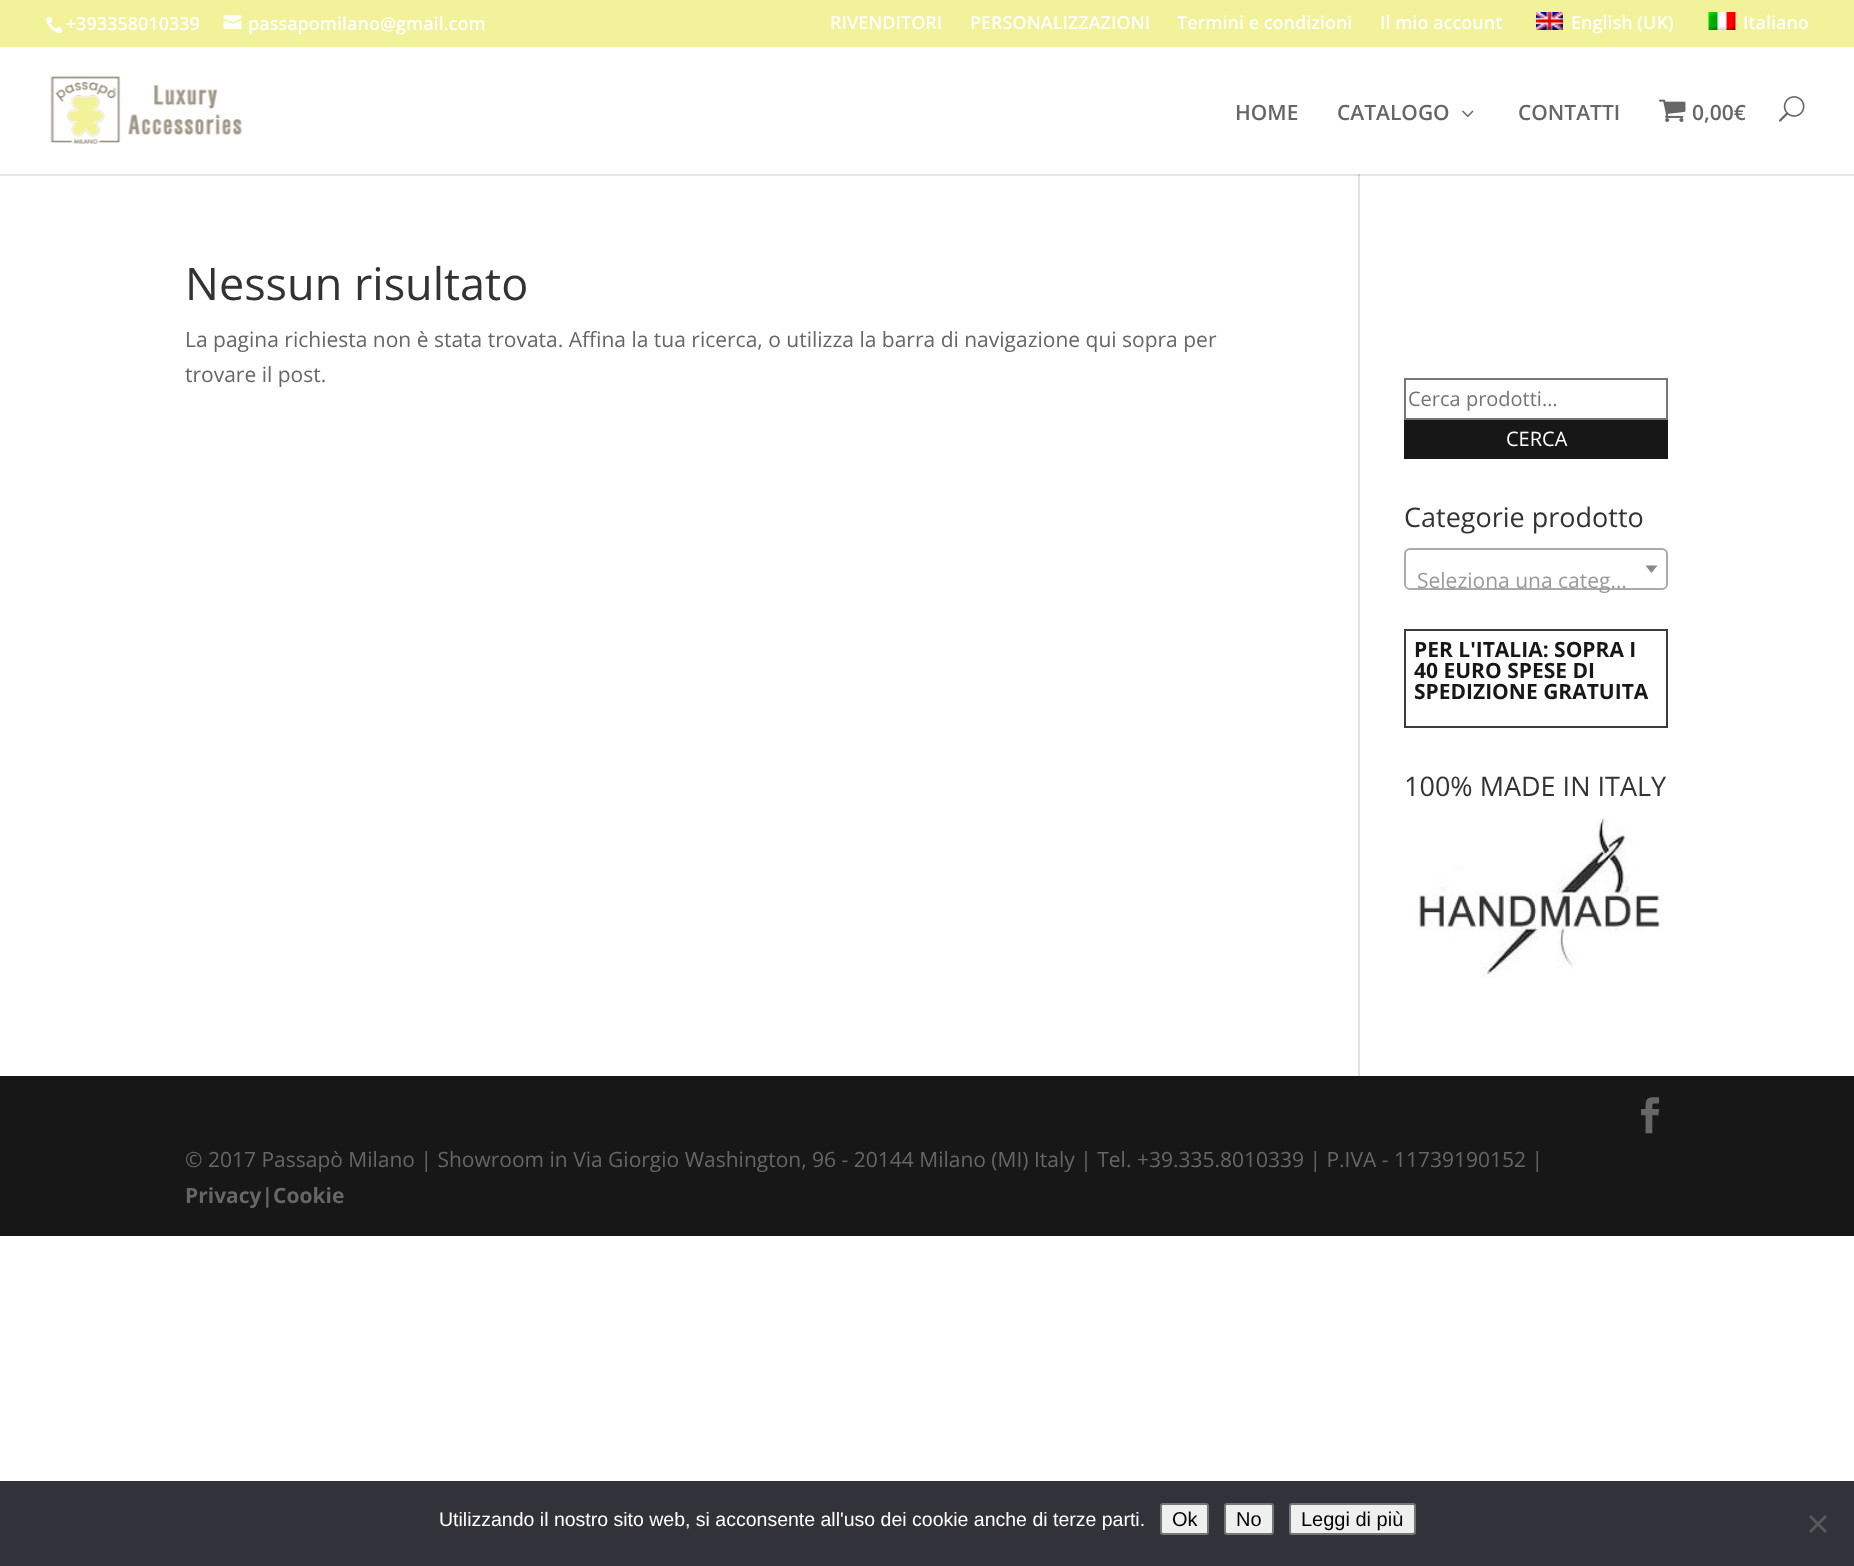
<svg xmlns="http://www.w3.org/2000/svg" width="1854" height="1566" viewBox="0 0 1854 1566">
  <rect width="100%" height="100%" fill="rgb(255,255,255)"/>
  <rect x="0" y="174" width="1854" height="2" fill="rgb(230,230,230)"/>
  <rect x="0" y="0" width="1854" height="47" fill="rgb(242,242,154)"/>
  <image x="45" y="16" width="18" height="18" href="pic1.png"/>
  <text x="66" y="30" font-family="Open Sans" font-size="18" font-weight="600" fill="rgb(255,255,255)">+393358010339</text>
  <image x="223" y="15" width="19" height="14" href="pic2.png"/>
  <g font-family="Open Sans" font-size="18" font-weight="600" fill="rgb(255,255,255)">
    <text x="248" y="30">passapomilano@gmail.com</text>
    <text x="830" y="29">RIVENDITORI</text>
    <text x="970" y="29">PERSONALIZZAZIONI</text>
    <text x="1177" y="29">Termini e condizioni</text>
    <text x="1380" y="29">Il mio account</text>
  </g>
  <image x="1536" y="12" width="27" height="18" href="pic3.png"/>
  <text x="1571" y="29" font-family="Open Sans" font-size="18" font-weight="600" fill="rgb(255,255,255)">English (UK)</text>
  <image x="1708" y="12" width="28" height="18" href="pic4.png"/>
  <text x="1743" y="29" font-family="Open Sans" font-size="18" font-weight="600" fill="rgb(255,255,255)">Italiano</text>
  <image x="50" y="76" width="193" height="68" href="pic5.png"/>
  <g font-family="Open Sans" font-size="21" font-weight="600" fill="rgb(102,102,102)">
    <text x="1235" y="120">HOME</text>
    <text x="1337" y="120">CATALOGO</text>
  </g>
  <image x="1462" y="110" width="12" height="7" href="pic6.png"/>
  <text x="1518" y="120" font-family="Open Sans" font-size="21" font-weight="600" fill="rgb(102,102,102)">CONTATTI</text>
  <image x="1659" y="99" width="27" height="23" href="pic7.png"/>
  <text x="1692" y="120" font-family="Open Sans" font-size="21" font-weight="600" fill="rgb(102,102,102)">0,00€</text>
  <image x="1778" y="96" width="27" height="26" href="pic8.png"/>
  <rect x="1358" y="174" width="2" height="902" fill="rgb(226,226,226)"/>
  <rect x="1358" y="174" width="2" height="2" fill="rgb(203,203,203)"/>
  <text x="185" y="300" font-family="Open Sans" font-size="45" fill="rgb(51,51,51)">Nessun risultato</text>
  <g font-family="Open Sans" font-size="21" fill="rgb(102,102,102)">
    <text>
      <tspan x="185" y="347">La pagina richiesta non è stata trovata. Affina la tua ricerca, o utilizza la barra di navigazione qui sopra per</tspan>
      <tspan x="185" y="382">trovare il post.</tspan>
    </text>
  </g>
  <rect x="1405" y="379" width="262" height="40" fill="none" stroke="rgb(118,118,118)" stroke-width="2"/>
  <text x="1408" y="406" font-family="Open Sans" font-size="20" fill="rgb(117,117,117)">Cerca prodotti…</text>
  <rect x="1404" y="420" width="264" height="39" fill="rgb(23,23,23)"/>
  <text x="1506" y="446" font-family="Open Sans" font-size="20" fill="rgb(255,255,255)">CERCA</text>
  <text x="1404" y="527" font-family="Open Sans" font-size="27" fill="rgb(51,51,51)">Categorie prodotto</text>
  <rect x="1405" y="549" width="262" height="40" rx="5" fill="none" stroke="rgb(170,170,170)" stroke-width="2"/>
  <path d="M1645.5 565.5H1657.5L1651.5 573Z" fill="rgb(136,136,136)"/>
  <text x="1417" y="588" font-family="Open Sans" font-size="21" fill="rgb(153,153,153)">Seleziona una categ…</text>
  <rect x="1405" y="630" width="262" height="97" fill="none" stroke="rgb(60,60,60)" stroke-width="2"/>
  <g font-family="Open Sans" font-size="21" font-weight="bold" fill="rgb(23,23,23)">
    <text>
      <tspan x="1414" y="657">PER L'ITALIA: SOPRA I</tspan>
      <tspan x="1414" y="678">40 EURO SPESE DI</tspan>
      <tspan x="1414" y="699">SPEDIZIONE GRATUITA</tspan>
    </text>
  </g>
  <text x="1404" y="796" font-family="Open Sans" font-size="27" fill="rgb(51,51,51)">100% MADE IN ITALY</text>
  <image x="1415" y="817" width="248" height="162" href="pic9.png"/>
  <rect x="0" y="1076" width="1854" height="160" fill="rgb(23,23,23)"/>
  <image x="1641" y="1097" width="19" height="37" href="pic10.png"/>
  <text x="185" y="1167" font-family="Open Sans" font-size="21" fill="rgb(102,102,102)">© 2017 Passapò Milano | Showroom in Via Giorgio Washington, 96 - 20144 Milano (MI) Italy | Tel. +39.335.8010339 | P.IVA - 11739190152 |</text>
  <text x="185" y="1203" font-family="Open Sans" font-size="21" font-weight="bold" fill="rgb(102,102,102)">Privacy|Cookie</text>
  <rect x="0" y="1481" width="1854" height="85" fill="rgb(50,50,58)"/>
  <text x="439" y="1526" font-family="Liberation Sans" font-size="19.5" fill="rgb(255,255,255)">Utilizzando il nostro sito web, si acconsente all'uso dei cookie anche di terze parti.</text>
  <rect x="1161" y="1504" width="47" height="30" rx="2" fill="rgb(239,239,239)" stroke="rgb(118,118,118)" stroke-width="2"/>
  <text x="1172" y="1526" font-family="Liberation Sans" font-size="20" fill="rgb(0,0,0)">Ok</text>
  <rect x="1225" y="1504" width="48" height="30" rx="2" fill="rgb(239,239,239)" stroke="rgb(118,118,118)" stroke-width="2"/>
  <text x="1236" y="1526" font-family="Liberation Sans" font-size="20" fill="rgb(0,0,0)">No</text>
  <rect x="1290" y="1504" width="125" height="30" rx="2" fill="rgb(239,239,239)" stroke="rgb(118,118,118)" stroke-width="2"/>
  <text x="1301" y="1526" font-family="Liberation Sans" font-size="20" fill="rgb(0,0,0)">Leggi di più</text>
  <path d="M1825 1515L1827 1517L1811 1533L1809 1531Z" fill="rgb(89,89,93)"/>
  <path d="M1809 1517L1811 1515L1827 1531L1825 1533Z" fill="rgb(89,89,93)"/>
</svg>
